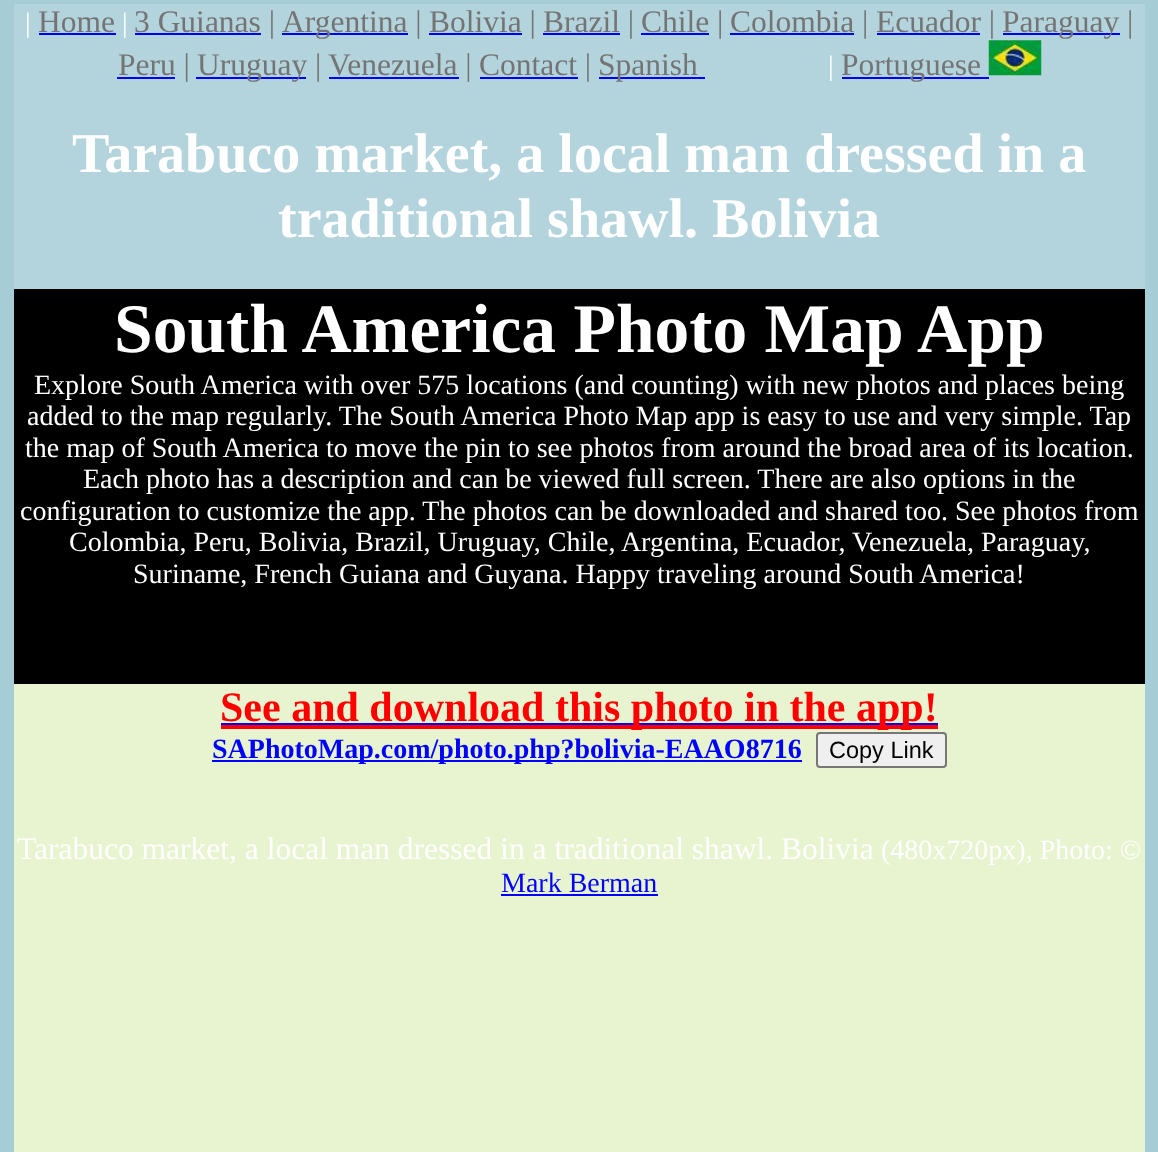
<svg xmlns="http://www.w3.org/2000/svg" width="1158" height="1152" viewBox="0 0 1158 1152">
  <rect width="100%" height="100%" fill="rgb(166,204,214)"/>
  <rect x="14" y="4" width="1131" height="285" fill="rgb(179,212,220)"/>
  <text x="25" y="32" font-family="Liberation Serif" font-size="28" fill="rgb(255,255,255)">|</text>
  <text x="38" y="32" font-family="Liberation Serif" font-size="31.5" fill="rgb(116,116,116)">Home</text>
  <rect x="39" y="33" width="77" height="2" fill="rgb(0,0,255)"/>
  <text x="122" y="32" font-family="Liberation Serif" font-size="28" fill="rgb(255,255,255)">|</text>
  <rect x="135" y="33" width="126" height="2" fill="rgb(0,0,255)"/>
  <text x="134" y="32" font-family="Liberation Serif" font-size="31.5" fill="rgb(116,116,116)">3 Guianas |</text>
  <rect x="282" y="33" width="126" height="2" fill="rgb(0,0,255)"/>
  <text x="282" y="32" font-family="Liberation Serif" font-size="31.5" fill="rgb(116,116,116)">Argentina |</text>
  <rect x="429" y="33" width="93" height="2" fill="rgb(0,0,255)"/>
  <text x="429" y="32" font-family="Liberation Serif" font-size="31.5" fill="rgb(116,116,116)">Bolivia |</text>
  <rect x="543" y="33" width="77" height="2" fill="rgb(0,0,255)"/>
  <text x="543" y="32" font-family="Liberation Serif" font-size="31.5" fill="rgb(116,116,116)">Brazil |</text>
  <rect x="641" y="33" width="68" height="2" fill="rgb(0,0,255)"/>
  <text x="641" y="32" font-family="Liberation Serif" font-size="31.5" fill="rgb(116,116,116)">Chile |</text>
  <rect x="730" y="33" width="124" height="2" fill="rgb(0,0,255)"/>
  <text x="730" y="32" font-family="Liberation Serif" font-size="31.5" fill="rgb(116,116,116)">Colombia |</text>
  <rect x="877" y="33" width="103" height="2" fill="rgb(0,0,255)"/>
  <text x="876" y="32" font-family="Liberation Serif" font-size="31.5" fill="rgb(116,116,116)">Ecuador |</text>
  <rect x="1003" y="33" width="117" height="2" fill="rgb(0,0,255)"/>
  <text x="1002" y="32" font-family="Liberation Serif" font-size="31.5" fill="rgb(116,116,116)">Paraguay |</text>
  <rect x="117" y="77" width="58" height="2" fill="rgb(0,0,255)"/>
  <text x="118" y="75" font-family="Liberation Serif" font-size="31.5" fill="rgb(116,116,116)">Peru |</text>
  <rect x="196" y="77" width="110" height="2" fill="rgb(0,0,255)"/>
  <text x="197" y="75" font-family="Liberation Serif" font-size="31.5" fill="rgb(116,116,116)">Uruguay |</text>
  <rect x="329" y="77" width="130" height="2" fill="rgb(0,0,255)"/>
  <text x="328" y="75" font-family="Liberation Serif" font-size="31.5" fill="rgb(116,116,116)">Venezuela |</text>
  <rect x="480" y="77" width="98" height="2" fill="rgb(0,0,255)"/>
  <text x="479" y="75" font-family="Liberation Serif" font-size="31.5" fill="rgb(116,116,116)">Contact |</text>
  <rect x="599" y="77" width="106" height="2" fill="rgb(0,0,255)"/>
  <text x="598" y="75" font-family="Liberation Serif" font-size="31.5" fill="rgb(116,116,116)">Spanish</text>
  <text x="828" y="75" font-family="Liberation Serif" font-size="28" fill="rgb(255,255,255)">|</text>
  <rect x="842" y="77" width="147" height="2" fill="rgb(0,0,255)"/>
  <text x="841" y="75" font-family="Liberation Serif" font-size="31.5" fill="rgb(116,116,116)">Portuguese</text>
  <image x="988" y="40" width="54" height="36" href="pic1.png"/>
  <g font-family="Liberation Serif" font-size="56" font-weight="bold" fill="rgb(255,255,255)">
    <text x="72" y="172">Tarabuco market, a local man dressed in a</text>
    <text x="278" y="237">traditional shawl. Bolivia</text>
  </g>
  <rect x="14" y="289" width="1131" height="395" fill="rgb(0,0,0)"/>
  <text x="114" y="352" font-family="Liberation Serif" font-size="69.5" font-weight="bold" fill="rgb(255,255,255)">South America Photo Map App</text>
  <g font-family="Liberation Serif" font-size="28" fill="rgb(255,255,255)">
    <text x="34" y="394">Explore South America with over 575 locations (and counting) with new photos and places being</text>
    <text x="27" y="425">added to the map regularly. The South America Photo Map app is easy to use and very simple. Tap</text>
    <text x="25" y="457">the map of South America to move the pin to see photos from around the broad area of its location.</text>
    <text x="83" y="488">Each photo has a description and can be viewed full screen. There are also options in the</text>
    <text x="20" y="520">configuration to customize the app. The photos can be downloaded and shared too. See photos from</text>
    <text x="69" y="551">Colombia, Peru, Bolivia, Brazil, Uruguay, Chile, Argentina, Ecuador, Venezuela, Paraguay,</text>
    <text x="133" y="583">Suriname, French Guiana and Guyana. Happy traveling around South America!</text>
  </g>
  <rect x="14" y="684" width="1131" height="468" fill="rgb(232,243,208)"/>
  <rect x="221" y="725" width="717" height="4" fill="rgb(255,0,0)"/>
  <rect x="221" y="723" width="717" height="2" fill="rgb(0,0,255)"/>
  <text x="220" y="721" font-family="Liberation Serif" font-size="42" font-weight="bold" fill="rgb(255,0,0)">See and download this photo in the app!</text>
  <rect x="212" y="760" width="590" height="2" fill="rgb(0,0,255)"/>
  <text x="212" y="758" font-family="Liberation Serif" font-size="28" font-weight="bold" fill="rgb(0,0,255)">SAPhotoMap.com/photo.php?bolivia-EAAO8716</text>
  <rect x="817" y="733" width="129" height="34" rx="3" fill="rgb(239,239,239)" stroke="rgb(118,118,118)" stroke-width="2"/>
  <text x="829" y="758" font-family="Liberation Sans" font-size="23.5" fill="rgb(0,0,0)">Copy Link</text>
  <text x="17" y="859" font-family="Liberation Serif" font-size="31.5" fill="rgb(255,255,255)">Tarabuco market, a local man dressed in a traditional shawl. Bolivia</text>
  <text x="881" y="859" font-family="Liberation Serif" font-size="28" fill="rgb(255,255,255)">(480x720px), Photo: ©</text>
  <text x="501" y="892" font-family="Liberation Serif" font-size="28" fill="rgb(0,0,255)">Mark Berman</text>
  <rect x="501" y="894" width="157" height="2" fill="rgb(0,0,255)"/>
</svg>
